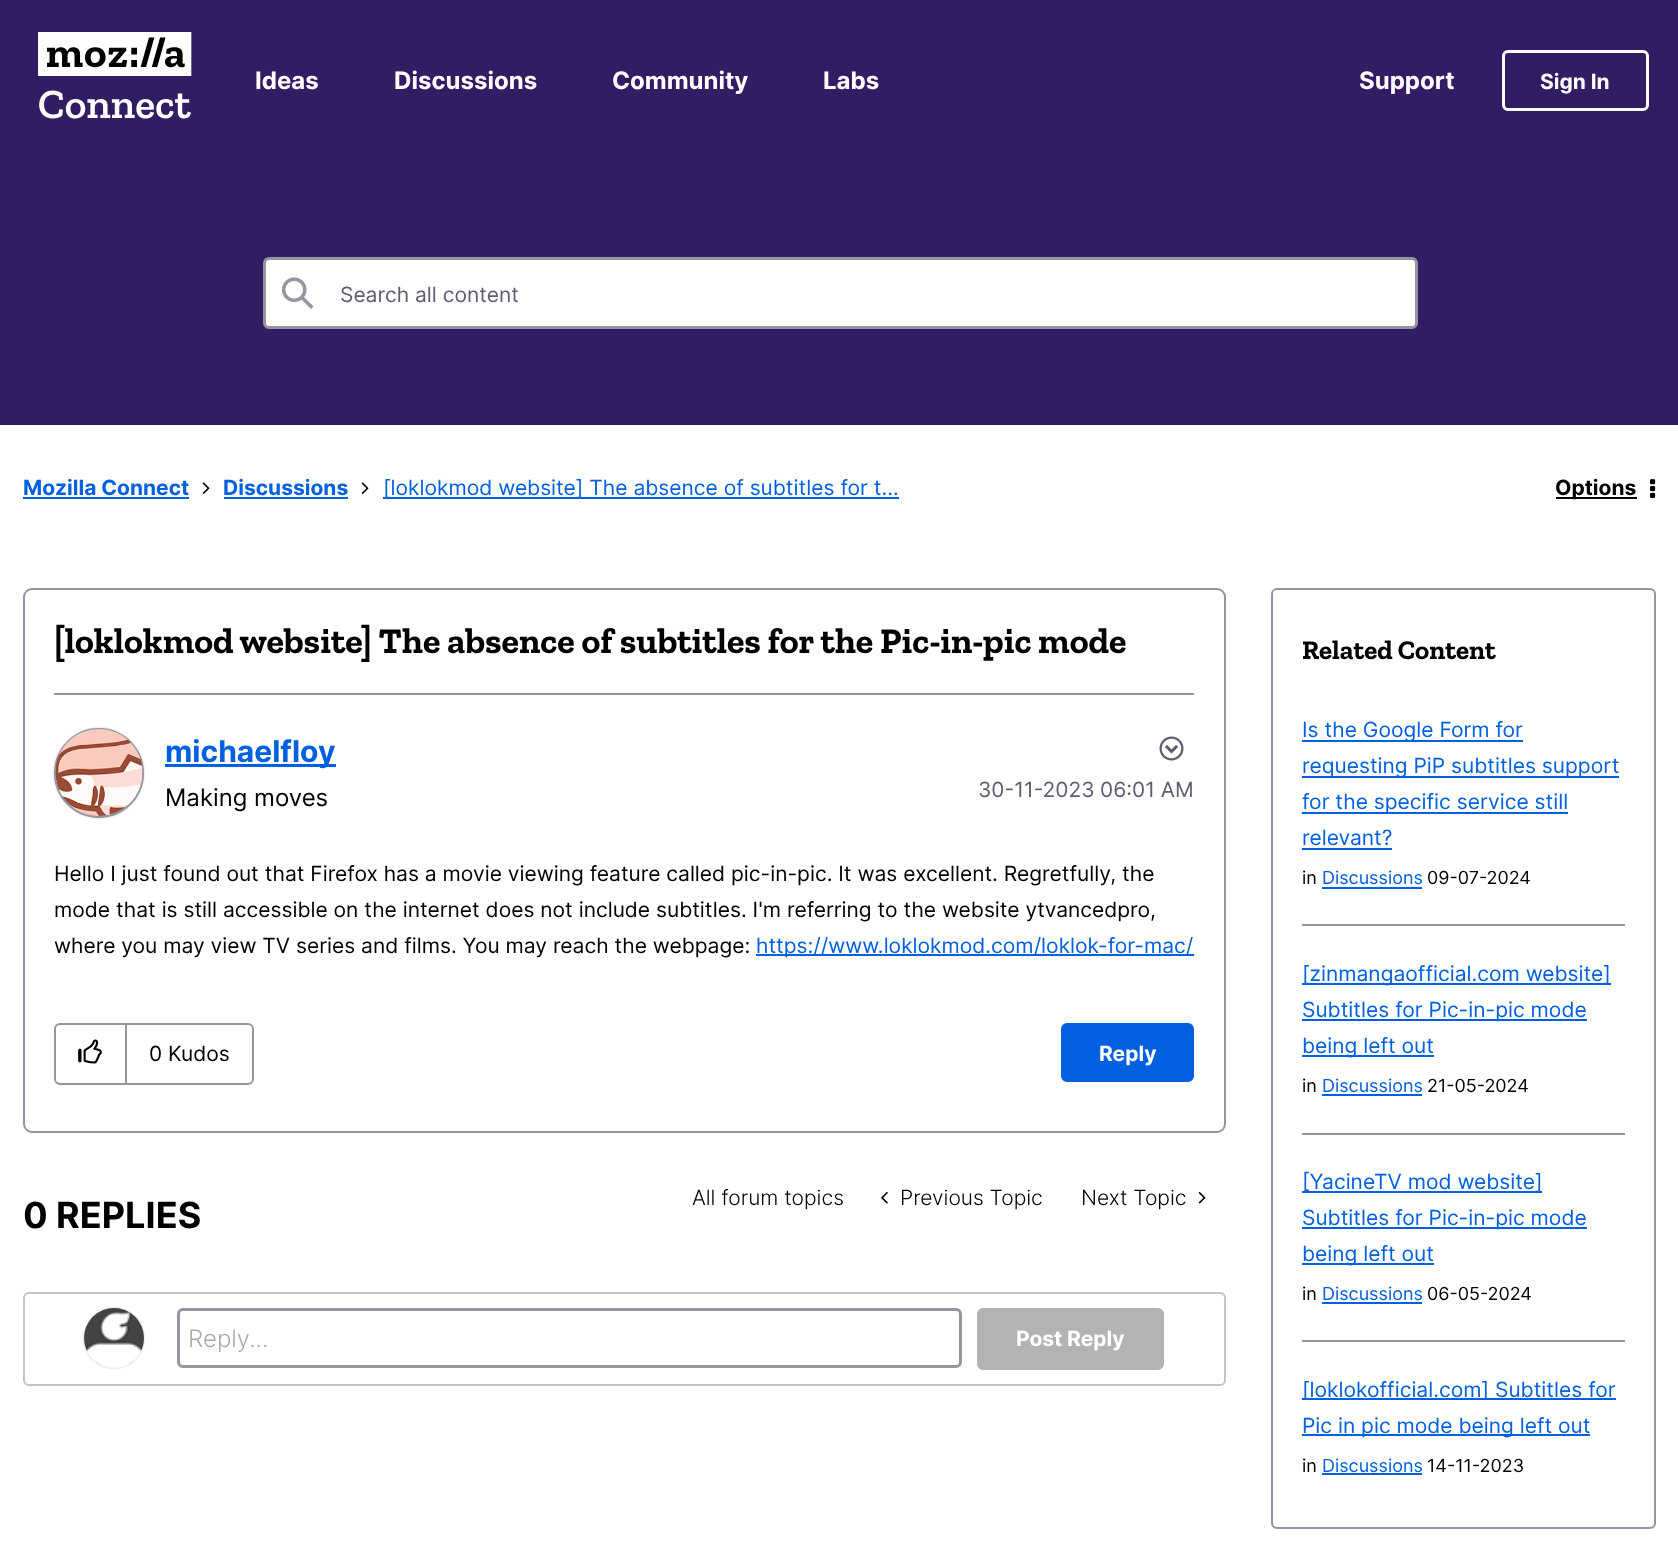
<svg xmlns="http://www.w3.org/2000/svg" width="1678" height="1555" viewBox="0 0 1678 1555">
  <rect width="100%" height="100%" fill="rgb(255,255,255)"/>
  <rect x="0" y="0" width="1678" height="425" fill="rgb(50,28,100)"/>
  <image x="38" y="32" width="154" height="87" href="pic1.png"/>
  <g font-family="Inter" font-size="24" font-weight="bold" fill="rgb(255,255,255)">
    <text x="255" y="89">Ideas</text>
    <text x="394" y="89">Discussions</text>
    <text x="612" y="89">Community</text>
    <text x="823" y="89">Labs</text>
    <text x="1359" y="89">Support</text>
  </g>
  <rect x="1503.5" y="51.5" width="144" height="58" rx="4.5" fill="none" stroke="rgb(255,255,255)" stroke-width="3"/>
  <text x="1540" y="89" font-family="Inter" font-size="21" font-weight="bold" fill="rgb(255,255,255)">Sign In</text>
  <rect x="264.5" y="258.5" width="1152" height="69" rx="4.5" fill="rgb(255,255,255)" stroke="rgb(149,149,162)" stroke-width="3"/>
  <image x="281" y="277" width="33" height="32" href="pic2.png"/>
  <text x="340" y="302" font-family="Inter" font-size="21" fill="rgb(94,94,114)">Search all content</text>
  <text x="23" y="495" font-family="Inter" font-size="21" font-weight="bold" fill="rgb(0,96,223)">Mozilla Connect</text>
  <rect x="23" y="497" width="166" height="2" fill="rgb(0,96,223)"/>
  <image x="202" y="482" width="8" height="12" href="pic3.png"/>
  <text x="223" y="495" font-family="Inter" font-size="21" font-weight="bold" fill="rgb(0,96,223)">Discussions</text>
  <rect x="224" y="497" width="124" height="2" fill="rgb(0,96,223)"/>
  <image x="361" y="482" width="8" height="12" href="pic3.png"/>
  <rect x="383" y="497" width="516" height="2" fill="rgb(0,96,223)"/>
  <text x="383" y="495" font-family="Inter" font-size="21" fill="rgb(0,96,223)">[loklokmod website] The absence of subtitles for t...</text>
  <rect x="1556" y="497" width="81" height="2" fill="rgb(0,0,0)"/>
  <text x="1555" y="495" font-family="Inter" font-size="21" font-weight="bold" fill="rgb(0,0,0)">Options</text>
  <image x="1650" y="479" width="6" height="19" href="pic4.png"/>
  <rect x="24" y="589" width="1201" height="543" rx="8" fill="none" stroke="rgb(149,149,162)" stroke-width="2"/>
  <rect x="54" y="693" width="1140" height="2" fill="rgb(149,149,162)"/>
  <text x="54" y="653" font-family="Zilla Slab" font-size="36" font-weight="bold" fill="rgb(0,0,0)">[loklokmod website] The absence of subtitles for the Pic-in-pic mode</text>
  <rect x="54" y="728" width="90" height="90" rx="45" fill="rgb(196,196,196)" filter="blur(1px)"/>
  <circle cx="99" cy="773" r="44" fill="none" stroke="rgb(149,149,162)" stroke-width="2"/>
  <image x="55" y="729" width="88" height="87" href="pic5.png"/>
  <rect x="165" y="764" width="171" height="3" fill="rgb(0,96,223)"/>
  <text x="165" y="762" font-family="Inter" font-size="30" font-weight="bold" fill="rgb(0,96,223)">michaelfloy</text>
  <text x="165" y="806" font-family="Inter" font-size="24" fill="rgb(0,0,0)">Making moves</text>
  <image x="1159" y="736" width="25" height="25" href="pic6.png"/>
  <g font-family="Inter" font-size="21" fill="rgb(94,94,114)">
    <text x="978" y="797">30-11-2023</text>
    <text x="1100" y="797">06:01 AM</text>
  </g>
  <g font-family="Inter" font-size="21" fill="rgb(0,0,0)">
    <text>
      <tspan x="54" y="881">Hello I just found out that Firefox has a movie viewing feature called pic-in-pic. It was excellent. Regretfully, the</tspan>
      <tspan x="54" y="917">mode that is still accessible on the internet does not include subtitles. I'm referring to the website ytvancedpro,</tspan>
      <tspan x="54" y="953">where you may view TV series and films. You may reach the webpage:</tspan>
    </text>
  </g>
  <rect x="756" y="954" width="438" height="2" fill="rgb(0,96,223)"/>
  <text x="756" y="953" font-family="Inter" font-size="21" fill="rgb(0,96,223)">https://www.loklokmod.com/loklok-for-mac/</text>
  <rect x="55" y="1024" width="198" height="60" rx="5" fill="none" stroke="rgb(149,149,162)" stroke-width="2"/>
  <rect x="125" y="1025" width="2" height="58" fill="rgb(149,149,162)"/>
  <image x="78" y="1039" width="24" height="25" href="pic7.png"/>
  <text x="149" y="1061" font-family="Inter" font-size="21" fill="rgb(0,0,0)">0 Kudos</text>
  <rect x="1062" y="1024" width="131" height="57" rx="5" fill="rgb(0,96,223)" stroke="rgb(0,96,223)" stroke-width="2"/>
  <text x="1099" y="1061" font-family="Inter" font-size="21" font-weight="bold" fill="rgb(255,255,255)">Reply</text>
  <text x="23" y="1228" font-family="Inter" font-size="36" font-weight="bold" fill="rgb(0,0,0)">0 REPLIES</text>
  <text x="692" y="1205" font-family="Inter" font-size="21" font-weight="300" fill="rgb(0,0,0)">All forum topics</text>
  <image x="881" y="1192" width="7" height="12" href="pic8.png"/>
  <g font-family="Inter" font-size="21" font-weight="300" fill="rgb(0,0,0)">
    <text x="900" y="1205">Previous Topic</text>
    <text x="1081" y="1205">Next Topic</text>
  </g>
  <image x="1198" y="1192" width="8" height="12" href="pic9.png"/>
  <rect x="24" y="1293" width="1201" height="92" rx="5" fill="none" stroke="rgb(196,196,196)" stroke-width="2"/>
  <rect x="84" y="1308" width="60" height="60" rx="30" fill="rgb(196,196,196)" filter="blur(1px)"/>
  <image x="84" y="1308" width="60" height="60" href="pic10.png"/>
  <rect x="178.5" y="1309.5" width="782" height="57" rx="4.5" fill="none" stroke="rgb(149,149,162)" stroke-width="3"/>
  <text x="188" y="1347" font-family="Inter" font-size="24" font-weight="300" fill="rgb(169,169,169)">Reply...</text>
  <rect x="978.5" y="1309.5" width="184" height="59" rx="4.5" fill="rgb(179,179,179)" stroke="rgb(179,179,179)" stroke-width="3"/>
  <text x="1016" y="1346" font-family="Inter" font-size="21" font-weight="bold" fill="rgb(255,255,255)">Post Reply</text>
  <rect x="1272" y="589" width="383" height="939" rx="5" fill="none" stroke="rgb(149,149,162)" stroke-width="2"/>
  <text x="1302" y="659" font-family="Zilla Slab" font-size="27" font-weight="bold" fill="rgb(0,0,0)">Related Content</text>
  <rect x="1302" y="924" width="323" height="2" fill="rgb(149,149,162)"/>
  <rect x="1302" y="740" width="221" height="2" fill="rgb(0,96,223)"/>
  <text x="1302" y="737" font-family="Inter" font-size="21" fill="rgb(0,96,223)">Is the Google Form for</text>
  <rect x="1302" y="776" width="317" height="2" fill="rgb(0,96,223)"/>
  <text x="1302" y="773" font-family="Inter" font-size="21" fill="rgb(0,96,223)">requesting PiP subtitles support</text>
  <rect x="1302" y="812" width="266" height="2" fill="rgb(0,96,223)"/>
  <g font-family="Inter" font-size="21" fill="rgb(0,96,223)">
    <text>
      <tspan x="1302" y="809">for the specific service still</tspan>
      <tspan x="1302" y="845">relevant?</tspan>
    </text>
  </g>
  <rect x="1302" y="848" width="90" height="2" fill="rgb(0,96,223)"/>
  <text x="1302" y="884" font-family="Inter" font-size="18" fill="rgb(0,0,0)">in</text>
  <text x="1322" y="884" font-family="Inter" font-size="18" fill="rgb(0,96,223)">Discussions</text>
  <rect x="1322" y="887" width="100" height="2" fill="rgb(0,96,223)"/>
  <text x="1427" y="884" font-family="Inter" font-size="18" fill="rgb(0,0,0)">09-07-2024</text>
  <rect x="1302" y="1133" width="323" height="2" fill="rgb(149,149,162)"/>
  <rect x="1302" y="983" width="309" height="2" fill="rgb(0,96,223)"/>
  <text x="1302" y="981" font-family="Inter" font-size="21" fill="rgb(0,96,223)">[zinmangaofficial.com website]</text>
  <rect x="1302" y="1019" width="285" height="2" fill="rgb(0,96,223)"/>
  <text x="1302" y="1017" font-family="Inter" font-size="21" fill="rgb(0,96,223)">Subtitles for Pic-in-pic mode</text>
  <rect x="1302" y="1055" width="132" height="2" fill="rgb(0,96,223)"/>
  <text x="1302" y="1053" font-family="Inter" font-size="21" fill="rgb(0,96,223)">being left out</text>
  <text x="1302" y="1092" font-family="Inter" font-size="18" fill="rgb(0,0,0)">in</text>
  <text x="1322" y="1092" font-family="Inter" font-size="18" fill="rgb(0,96,223)">Discussions</text>
  <rect x="1322" y="1094" width="100" height="2" fill="rgb(0,96,223)"/>
  <text x="1427" y="1092" font-family="Inter" font-size="18" fill="rgb(0,0,0)">21-05-2024</text>
  <rect x="1302" y="1340" width="323" height="2" fill="rgb(149,149,162)"/>
  <rect x="1302" y="1191" width="240" height="2" fill="rgb(0,96,223)"/>
  <text x="1302" y="1189" font-family="Inter" font-size="21" fill="rgb(0,96,223)">[YacineTV mod website]</text>
  <rect x="1302" y="1227" width="285" height="2" fill="rgb(0,96,223)"/>
  <text x="1302" y="1225" font-family="Inter" font-size="21" fill="rgb(0,96,223)">Subtitles for Pic-in-pic mode</text>
  <rect x="1302" y="1263" width="132" height="2" fill="rgb(0,96,223)"/>
  <text x="1302" y="1261" font-family="Inter" font-size="21" fill="rgb(0,96,223)">being left out</text>
  <text x="1302" y="1300" font-family="Inter" font-size="18" fill="rgb(0,0,0)">in</text>
  <text x="1322" y="1300" font-family="Inter" font-size="18" fill="rgb(0,96,223)">Discussions</text>
  <rect x="1322" y="1302" width="100" height="2" fill="rgb(0,96,223)"/>
  <text x="1427" y="1300" font-family="Inter" font-size="18" fill="rgb(0,0,0)">06-05-2024</text>
  <rect x="1302" y="1398" width="314" height="2" fill="rgb(0,96,223)"/>
  <text x="1302" y="1397" font-family="Inter" font-size="21" fill="rgb(0,96,223)">[loklokofficial.com] Subtitles for</text>
  <rect x="1302" y="1434" width="288" height="2" fill="rgb(0,96,223)"/>
  <text x="1302" y="1433" font-family="Inter" font-size="21" fill="rgb(0,96,223)">Pic in pic mode being left out</text>
  <text x="1302" y="1472" font-family="Inter" font-size="18" fill="rgb(0,0,0)">in</text>
  <text x="1322" y="1472" font-family="Inter" font-size="18" fill="rgb(0,96,223)">Discussions</text>
  <rect x="1322" y="1473" width="100" height="2" fill="rgb(0,96,223)"/>
  <text x="1427" y="1472" font-family="Inter" font-size="18" fill="rgb(0,0,0)">14-11-2023</text>
</svg>
